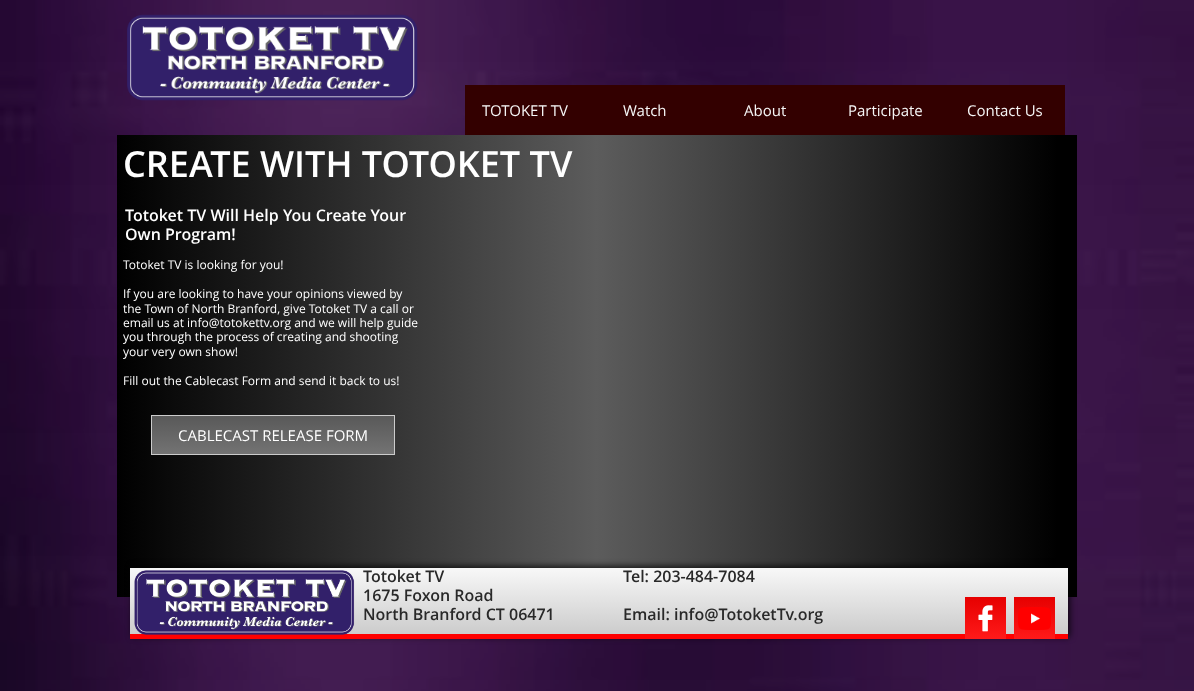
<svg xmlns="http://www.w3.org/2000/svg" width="1194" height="691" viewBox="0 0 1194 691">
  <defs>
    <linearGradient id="g1" gradientUnits="userSpaceOnUse" x1="117" y1="366" x2="1077" y2="366"><stop offset="0" stop-color="rgb(0,0,0)"/><stop offset="0.5" stop-color="rgb(92,92,92)"/><stop offset="0.98" stop-color="rgb(0,0,0)"/><stop offset="1" stop-color="rgb(0,0,0)"/></linearGradient>
    <linearGradient id="g2" gradientUnits="userSpaceOnUse" x1="273" y1="416" x2="273" y2="454"><stop offset="0" stop-color="rgb(89,89,89)"/><stop offset="1" stop-color="rgb(115,115,115)"/></linearGradient>
    <linearGradient id="g3" gradientUnits="userSpaceOnUse" x1="599" y1="568" x2="599" y2="634"><stop offset="0" stop-color="rgb(246,246,246)"/><stop offset="0.04" stop-color="rgb(246,246,246)"/><stop offset="1" stop-color="rgb(204,204,204)"/></linearGradient>
    <clipPath id="clip1"><path d="M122 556H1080V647H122ZM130 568H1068V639H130Z" clip-rule="evenodd"/></clipPath>
    <linearGradient id="g4" gradientUnits="userSpaceOnUse" x1="986" y1="597" x2="986" y2="639"><stop offset="0" stop-color="rgb(230,0,0)"/><stop offset="1" stop-color="rgb(255,26,26)"/></linearGradient>
    <linearGradient id="g5" gradientUnits="userSpaceOnUse" x1="1035" y1="597" x2="1035" y2="639"><stop offset="0" stop-color="rgb(230,0,0)"/><stop offset="1" stop-color="rgb(255,26,26)"/></linearGradient>
  </defs>
  <rect width="100%" height="100%" fill="rgb(255,255,255)"/>
  <image x="0" y="0" width="1194" height="691" href="pic1.png"/>
  <image x="127" y="14" width="291" height="87" href="pic2.png"/>
  <rect x="465" y="85" width="600" height="50" fill="rgb(51,0,0)"/>
  <g font-family="Open Sans" font-size="15" fill="rgb(246,246,246)">
    <text x="482" y="116">TOTOKET TV</text>
    <text x="623" y="116">Watch</text>
    <text x="744" y="116">About</text>
    <text x="848" y="116">Participate</text>
    <text x="967" y="116">Contact Us</text>
  </g>
  <rect x="117" y="135" width="960" height="462" fill="url(#g1)"/>
  <text x="123" y="177" font-family="Open Sans" font-size="36" font-weight="600" fill="rgb(255,255,255)">CREATE WITH TOTOKET TV</text>
  <g font-family="Open Sans" font-size="16" font-weight="600" fill="rgb(255,255,255)">
    <text>
      <tspan x="125" y="221">Totoket TV Will Help You Create Your</tspan>
      <tspan x="125" y="240">Own Program!</tspan>
    </text>
  </g>
  <g font-family="Open Sans" font-size="12" fill="rgb(255,255,255)">
    <text x="123" y="269">Totoket TV is looking for you!</text>
    <text>
      <tspan x="123" y="298">If you are looking to have your opinions viewed by</tspan>
      <tspan x="123" y="313">the Town of North Branford, give Totoket TV a call or</tspan>
      <tspan x="123" y="327">email us at info@totokettv.org and we will help guide</tspan>
      <tspan x="123" y="341">you through the process of creating and shooting</tspan>
      <tspan x="123" y="356">your very own show!</tspan>
    </text>
    <text x="123" y="385">Fill out the Cablecast Form and send it back to us!</text>
  </g>
  <rect x="152" y="416" width="242" height="38" fill="url(#g2)"/>
  <rect x="151.5" y="415.5" width="243" height="39" fill="none" stroke="rgb(204,204,204)"/>
  <text x="178" y="441" font-family="Open Sans" font-size="15" fill="rgb(255,255,255)">CABLECAST RELEASE FORM</text>
  <rect x="130" y="568" width="938" height="66" fill="url(#g3)"/>
  <g clip-path="url(#clip1)">
    <rect x="132" y="566" width="938" height="71" fill="rgba(0,0,0,0.75)" filter="blur(3px)"/>
  </g>
  <rect x="130" y="634" width="938" height="5" fill="rgb(255,0,0)"/>
  <image x="134" y="570" width="221" height="65" href="pic3.png"/>
  <g font-family="Open Sans" font-size="16" font-weight="600" fill="rgb(41,41,41)">
    <text>
      <tspan x="363" y="582">Totoket TV</tspan>
      <tspan x="363" y="601">1675 Foxon Road</tspan>
      <tspan x="363" y="620">North Branford CT 06471</tspan>
    </text>
    <text x="623" y="582">Tel: 203-484-7084</text>
    <text x="623" y="620">Email: info@TotoketTv.org</text>
  </g>
  <rect x="965" y="597" width="41" height="42" fill="url(#g4)"/>
  <image x="978" y="605" width="15" height="27" href="pic4.png"/>
  <rect x="1014" y="597" width="41" height="42" fill="url(#g5)"/>
  <image x="1018" y="607" width="33" height="23" href="pic5.png"/>
</svg>
